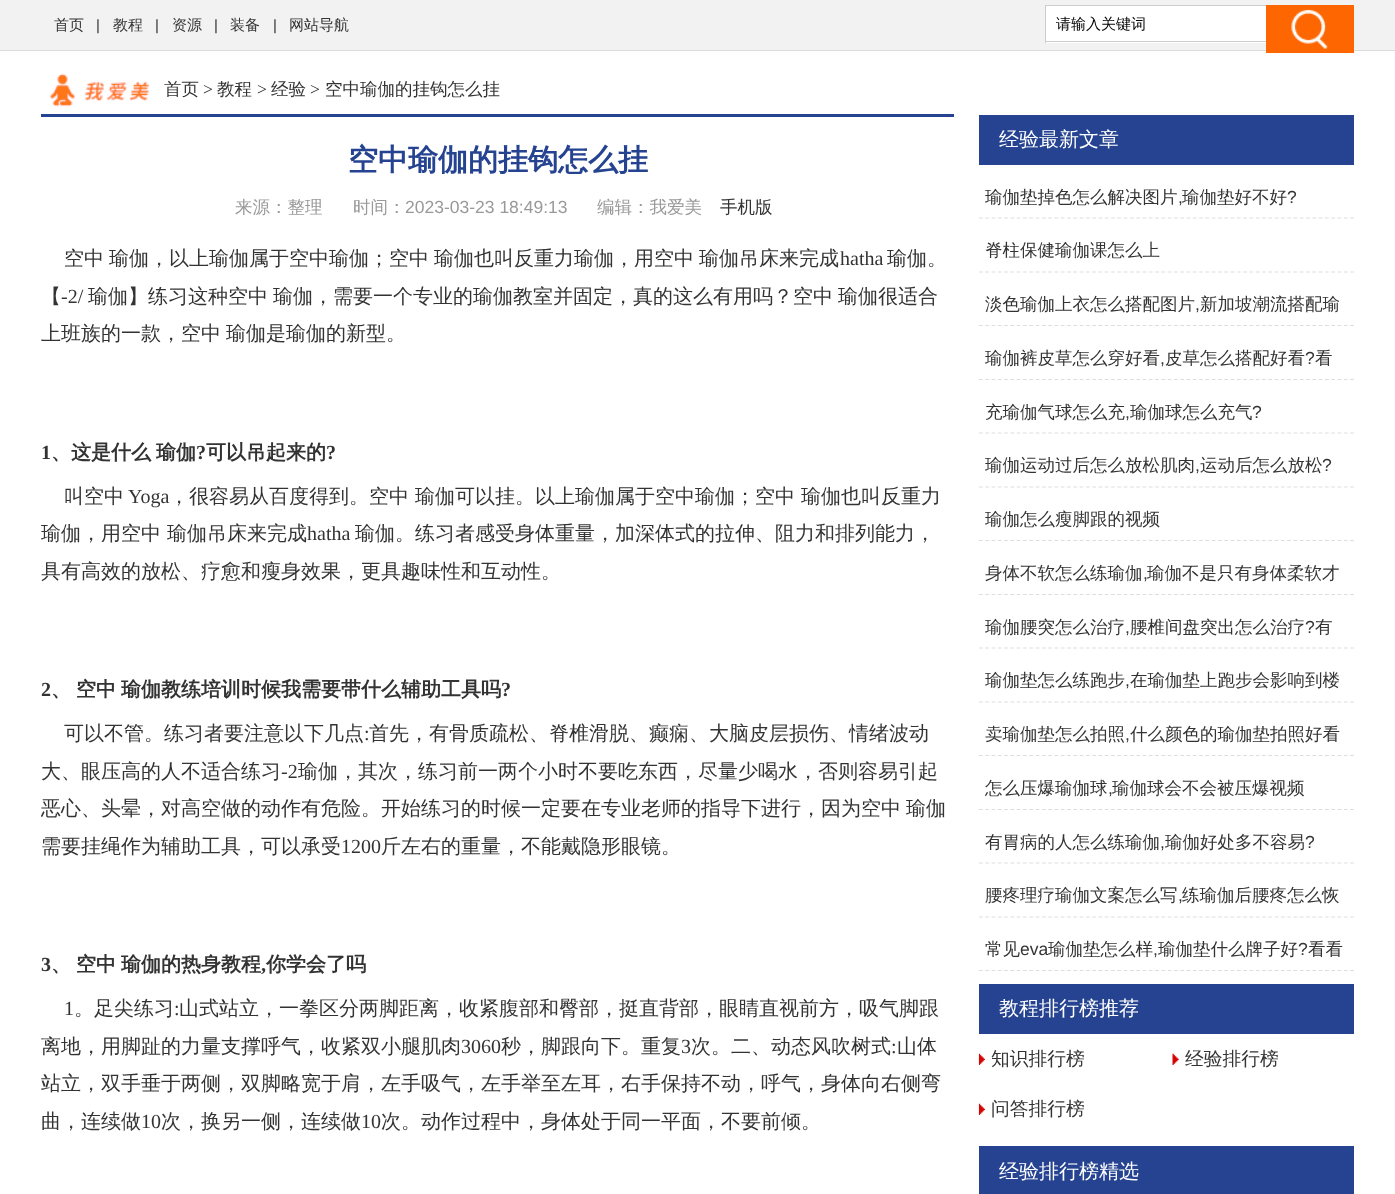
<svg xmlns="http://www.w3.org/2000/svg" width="1395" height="1194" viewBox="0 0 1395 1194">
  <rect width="100%" height="100%" fill="rgb(255,255,255)"/>
  <rect x="0" y="0" width="1395" height="50" fill="rgb(242,242,242)"/>
  <rect x="0" y="50" width="1395" height="1" fill="rgb(220,220,220)"/>
  <text x="54" y="30" font-family="WenQuanYi Zen Hei" font-size="15" font-weight="500" fill="rgb(51,51,51)">首页</text>
  <text x="96" y="30" font-family="Liberation Sans" font-size="15" fill="rgb(51,51,51)">|</text>
  <text x="113" y="30" font-family="WenQuanYi Zen Hei" font-size="15" font-weight="500" fill="rgb(51,51,51)">教程</text>
  <text x="155" y="30" font-family="Liberation Sans" font-size="15" fill="rgb(51,51,51)">|</text>
  <text x="172" y="30" font-family="WenQuanYi Zen Hei" font-size="15" font-weight="500" fill="rgb(51,51,51)">资源</text>
  <text x="214" y="30" font-family="Liberation Sans" font-size="15" fill="rgb(51,51,51)">|</text>
  <text x="230" y="30" font-family="WenQuanYi Zen Hei" font-size="15" font-weight="500" fill="rgb(51,51,51)">装备</text>
  <text x="273" y="30" font-family="Liberation Sans" font-size="15" fill="rgb(51,51,51)">|</text>
  <text x="289" y="30" font-family="WenQuanYi Zen Hei" font-size="15" font-weight="500" fill="rgb(51,51,51)">网站导航</text>
  <rect x="1046" y="6" width="220" height="37" fill="rgb(255,255,255)"/>
  <rect x="1045" y="5" width="221" height="1" fill="rgb(205,205,205)"/>
  <rect x="1045" y="41" width="221" height="1" fill="rgb(205,205,205)"/>
  <rect x="1045" y="5" width="1" height="38" fill="rgb(205,205,205)"/>
  <text x="1056" y="29" font-family="WenQuanYi Zen Hei" font-size="15" font-weight="500" fill="rgb(0,0,0)">请输入关键词</text>
  <rect x="1266" y="5" width="88" height="48" fill="rgb(253,102,0)"/>
  <image x="1291" y="9" width="37" height="40" href="pic1.png"/>
  <rect x="41" y="114" width="913" height="3" fill="rgb(37,67,144)"/>
  <image x="49" y="73" width="101" height="34" href="pic2.png"/>
  <text x="164" y="95" font-family="WenQuanYi Zen Hei" font-size="17.5" font-weight="500" fill="rgb(51,51,51)">首页</text>
  <text x="203" y="95" font-family="Liberation Serif" font-size="17.5" fill="rgb(51,51,51)">&gt;</text>
  <text x="217" y="95" font-family="WenQuanYi Zen Hei" font-size="17.5" font-weight="500" fill="rgb(51,51,51)">教程</text>
  <text x="257" y="95" font-family="Liberation Serif" font-size="17.5" fill="rgb(51,51,51)">&gt;</text>
  <text x="271" y="95" font-family="WenQuanYi Zen Hei" font-size="17.5" font-weight="500" fill="rgb(51,51,51)">经验</text>
  <text x="310" y="95" font-family="Liberation Serif" font-size="17.5" fill="rgb(51,51,51)">&gt;</text>
  <text x="325" y="95" font-family="WenQuanYi Zen Hei" font-size="17.5" font-weight="500" fill="rgb(51,51,51)">空中瑜伽的挂钩怎么挂</text>
  <text x="348" y="170" font-family="WenQuanYi Zen Hei" font-size="30" font-weight="bold" fill="rgb(37,67,144)">空中瑜伽的挂钩怎么挂</text>
  <g font-family="WenQuanYi Zen Hei" font-size="17.5" font-weight="500" fill="rgb(153,153,153)">
    <text x="235" y="213">来源：整理</text>
    <text x="353" y="213">时间：</text>
  </g>
  <text x="405" y="213" font-family="Liberation Sans" font-size="17.5" fill="rgb(153,153,153)">2023-03-23 18:49:13</text>
  <text x="597" y="213" font-family="WenQuanYi Zen Hei" font-size="17.5" font-weight="500" fill="rgb(153,153,153)">编辑：我爱美</text>
  <text x="720" y="213" font-family="WenQuanYi Zen Hei" font-size="17.5" font-weight="500" fill="rgb(51,51,51)">手机版</text>
  <text x="64" y="265" word-spacing="-1" font-family="WenQuanYi Zen Hei" font-size="20" font-weight="500" fill="rgb(51,51,51)">空中 瑜伽，以上瑜伽属于空中瑜伽；空中 瑜伽也叫反重力瑜伽，用空中 瑜伽吊床来完成</text>
  <text x="840" y="265" font-family="Liberation Serif" font-size="20" fill="rgb(51,51,51)">hatha</text>
  <g font-family="WenQuanYi Zen Hei" font-size="20" font-weight="500" fill="rgb(51,51,51)">
    <text x="887" y="265">瑜伽。</text>
    <text x="41" y="303">【</text>
  </g>
  <text x="61" y="303" font-family="Liberation Serif" font-size="20" fill="rgb(51,51,51)">-2/</text>
  <g font-family="WenQuanYi Zen Hei" font-size="20" font-weight="500" fill="rgb(51,51,51)">
    <text x="88" y="303" word-spacing="-1">瑜伽】练习这种空中 瑜伽，需要一个专业的瑜伽教室并固定，真的这么有用吗？空中 瑜伽很适合</text>
    <text x="41" y="340" word-spacing="-1">上班族的一款，空中 瑜伽是瑜伽的新型。</text>
  </g>
  <text x="41" y="459" font-family="Liberation Serif" font-size="20" font-weight="bold" fill="rgb(51,51,51)">1</text>
  <text x="51" y="459" word-spacing="-1" font-family="WenQuanYi Zen Hei" font-size="20" font-weight="bold" fill="rgb(51,51,51)">、这是什么 瑜伽</text>
  <text x="196" y="459" font-family="Liberation Serif" font-size="20" font-weight="bold" fill="rgb(51,51,51)">?</text>
  <text x="206" y="459" font-family="WenQuanYi Zen Hei" font-size="20" font-weight="bold" fill="rgb(51,51,51)">可以吊起来的</text>
  <text x="326" y="459" font-family="Liberation Serif" font-size="20" font-weight="bold" fill="rgb(51,51,51)">?</text>
  <text x="64" y="503" font-family="WenQuanYi Zen Hei" font-size="20" font-weight="500" fill="rgb(51,51,51)">叫空中</text>
  <text x="128" y="503" font-family="Liberation Serif" font-size="20" fill="rgb(51,51,51)">Yoga</text>
  <g font-family="WenQuanYi Zen Hei" font-size="20" font-weight="500" fill="rgb(51,51,51)">
    <text x="169" y="503">，很容易从百度得到。空中 瑜伽可以挂。以上瑜伽属于空中瑜伽；空中 瑜伽也叫反重力</text>
    <text x="41" y="540">瑜伽，用空中 瑜伽吊床来完成</text>
  </g>
  <text x="307" y="540" font-family="Liberation Serif" font-size="20" fill="rgb(51,51,51)">hatha</text>
  <g font-family="WenQuanYi Zen Hei" font-size="20" font-weight="500" fill="rgb(51,51,51)">
    <text x="355" y="540">瑜伽。练习者感受身体重量，加深体式的拉伸、阻力和排列能力，</text>
    <text x="41" y="578">具有高效的放松、疗愈和瘦身效果，更具趣味性和互动性。</text>
  </g>
  <text x="41" y="696" font-family="Liberation Serif" font-size="20" font-weight="bold" fill="rgb(51,51,51)">2</text>
  <text x="51" y="696" word-spacing="-1" font-family="WenQuanYi Zen Hei" font-size="20" font-weight="bold" fill="rgb(51,51,51)">、 空中 瑜伽教练培训时候我需要带什么辅助工具吗</text>
  <text x="501" y="696" font-family="Liberation Serif" font-size="20" font-weight="bold" fill="rgb(51,51,51)">?</text>
  <text x="64" y="740" font-family="WenQuanYi Zen Hei" font-size="20" font-weight="500" fill="rgb(51,51,51)">可以不管。练习者要注意以下几点</text>
  <text x="364" y="740" font-family="Liberation Serif" font-size="20" fill="rgb(51,51,51)">:</text>
  <g font-family="WenQuanYi Zen Hei" font-size="20" font-weight="500" fill="rgb(51,51,51)">
    <text x="369" y="740">首先，有骨质疏松、脊椎滑脱、癫痫、大脑皮层损伤、情绪波动</text>
    <text x="41" y="778">大、眼压高的人不适合练习</text>
  </g>
  <text x="281" y="778" font-family="Liberation Serif" font-size="20" fill="rgb(51,51,51)">-2</text>
  <g font-family="WenQuanYi Zen Hei" font-size="20" font-weight="500" fill="rgb(51,51,51)">
    <text x="298" y="778">瑜伽，其次，练习前一两个小时不要吃东西，尽量少喝水，否则容易引起</text>
    <text>
      <tspan x="41" y="815" word-spacing="-1">恶心、头晕，对高空做的动作有危险。开始练习的时候一定要在专业老师的指导下进行，因为空中 瑜伽</tspan>
      <tspan x="41" y="853">需要挂绳作为辅助工具，可以承受</tspan>
    </text>
  </g>
  <text x="341" y="853" font-family="Liberation Serif" font-size="20" fill="rgb(51,51,51)">1200</text>
  <text x="381" y="853" font-family="WenQuanYi Zen Hei" font-size="20" font-weight="500" fill="rgb(51,51,51)">斤左右的重量，不能戴隐形眼镜。</text>
  <text x="41" y="971" font-family="Liberation Serif" font-size="20" font-weight="bold" fill="rgb(51,51,51)">3</text>
  <text x="51" y="971" word-spacing="-1" font-family="WenQuanYi Zen Hei" font-size="20" font-weight="bold" fill="rgb(51,51,51)">、 空中 瑜伽的热身教程</text>
  <text x="261" y="971" font-family="Liberation Serif" font-size="20" font-weight="bold" fill="rgb(51,51,51)">,</text>
  <text x="266" y="971" font-family="WenQuanYi Zen Hei" font-size="20" font-weight="bold" fill="rgb(51,51,51)">你学会了吗</text>
  <text x="64" y="1015" font-family="Liberation Serif" font-size="20" fill="rgb(51,51,51)">1</text>
  <text x="74" y="1015" font-family="WenQuanYi Zen Hei" font-size="20" font-weight="500" fill="rgb(51,51,51)">。足尖练习</text>
  <text x="174" y="1015" font-family="Liberation Serif" font-size="20" fill="rgb(51,51,51)">:</text>
  <g font-family="WenQuanYi Zen Hei" font-size="20" font-weight="500" fill="rgb(51,51,51)">
    <text x="179" y="1015">山式站立，一拳区分两脚距离，收紧腹部和臀部，挺直背部，眼睛直视前方，吸气脚跟</text>
    <text x="41" y="1053">离地，用脚趾的力量支撑呼气，收紧双小腿肌肉</text>
  </g>
  <text x="461" y="1053" font-family="Liberation Serif" font-size="20" fill="rgb(51,51,51)">3060</text>
  <text x="501" y="1053" font-family="WenQuanYi Zen Hei" font-size="20" font-weight="500" fill="rgb(51,51,51)">秒，脚跟向下。重复</text>
  <text x="681" y="1053" font-family="Liberation Serif" font-size="20" fill="rgb(51,51,51)">3</text>
  <text x="691" y="1053" font-family="WenQuanYi Zen Hei" font-size="20" font-weight="500" fill="rgb(51,51,51)">次。二、动态风吹树式</text>
  <text x="891" y="1053" font-family="Liberation Serif" font-size="20" fill="rgb(51,51,51)">:</text>
  <g font-family="WenQuanYi Zen Hei" font-size="20" font-weight="500" fill="rgb(51,51,51)">
    <text x="897" y="1053">山体</text>
    <text>
      <tspan x="41" y="1090">站立，双手垂于两侧，双脚略宽于肩，左手吸气，左手举至左耳，右手保持不动，呼气，身体向右侧弯</tspan>
      <tspan x="41" y="1128">曲，连续做</tspan>
    </text>
  </g>
  <text x="141" y="1128" font-family="Liberation Serif" font-size="20" fill="rgb(51,51,51)">10</text>
  <text x="161" y="1128" font-family="WenQuanYi Zen Hei" font-size="20" font-weight="500" fill="rgb(51,51,51)">次，换另一侧，连续做</text>
  <text x="361" y="1128" font-family="Liberation Serif" font-size="20" fill="rgb(51,51,51)">10</text>
  <text x="381" y="1128" font-family="WenQuanYi Zen Hei" font-size="20" font-weight="500" fill="rgb(51,51,51)">次。动作过程中，身体处于同一平面，不要前倾。</text>
  <rect x="979" y="115" width="375" height="50" fill="rgb(37,67,144)"/>
  <text x="999" y="146" font-family="WenQuanYi Zen Hei" font-size="20" font-weight="500" fill="rgb(255,255,255)">经验最新文章</text>
  <path d="M979 218H1354" fill="none" stroke="rgb(221,221,221)" stroke-width="1.2" stroke-dasharray="3.75 2.54"/>
  <g font-family="WenQuanYi Zen Hei" font-size="17.5" font-weight="500" fill="rgb(51,51,51)">
    <text x="985" y="203">瑜伽垫掉色怎么解决图片</text>
    <text x="1182" y="203">瑜伽垫好不好</text>
  </g>
  <g font-family="Liberation Sans" font-size="17.5" fill="rgb(51,51,51)">
    <text x="1287" y="203">?</text>
    <text x="1178" y="203">,</text>
  </g>
  <path d="M979 272H1354" fill="none" stroke="rgb(221,221,221)" stroke-width="1.2" stroke-dasharray="3.75 2.54"/>
  <text x="985" y="256" font-family="WenQuanYi Zen Hei" font-size="17.5" font-weight="500" fill="rgb(51,51,51)">脊柱保健瑜伽课怎么上</text>
  <path d="M979 325.5H1354" fill="none" stroke="rgb(221,221,221)" stroke-width="1.2" stroke-dasharray="3.75 2.54"/>
  <text x="985" y="310" font-family="WenQuanYi Zen Hei" font-size="17.5" font-weight="500" fill="rgb(51,51,51)">淡色瑜伽上衣怎么搭配图片</text>
  <text x="1195" y="310" font-family="Liberation Sans" font-size="17.5" fill="rgb(51,51,51)">,</text>
  <text x="1200" y="310" font-family="WenQuanYi Zen Hei" font-size="17.5" font-weight="500" fill="rgb(51,51,51)">新加坡潮流搭配瑜</text>
  <path d="M979 379.5H1354" fill="none" stroke="rgb(221,221,221)" stroke-width="1.2" stroke-dasharray="3.75 2.54"/>
  <g font-family="WenQuanYi Zen Hei" font-size="17.5" font-weight="500" fill="rgb(51,51,51)">
    <text x="985" y="364">瑜伽裤皮草怎么穿好看</text>
    <text x="1165" y="364">皮草怎么搭配好看</text>
  </g>
  <text x="1305" y="364" font-family="Liberation Sans" font-size="17.5" fill="rgb(51,51,51)">?</text>
  <text x="1315" y="364" font-family="WenQuanYi Zen Hei" font-size="17.5" font-weight="500" fill="rgb(51,51,51)">看</text>
  <text x="1160" y="364" font-family="Liberation Sans" font-size="17.5" fill="rgb(51,51,51)">,</text>
  <path d="M979 433H1354" fill="none" stroke="rgb(221,221,221)" stroke-width="1.2" stroke-dasharray="3.75 2.54"/>
  <g font-family="WenQuanYi Zen Hei" font-size="17.5" font-weight="500" fill="rgb(51,51,51)">
    <text x="985" y="418">充瑜伽气球怎么充</text>
    <text x="1130" y="418">瑜伽球怎么充气</text>
  </g>
  <g font-family="Liberation Sans" font-size="17.5" fill="rgb(51,51,51)">
    <text x="1252" y="418">?</text>
    <text x="1125" y="418">,</text>
  </g>
  <path d="M979 487H1354" fill="none" stroke="rgb(221,221,221)" stroke-width="1.2" stroke-dasharray="3.75 2.54"/>
  <g font-family="WenQuanYi Zen Hei" font-size="17.5" font-weight="500" fill="rgb(51,51,51)">
    <text x="985" y="471">瑜伽运动过后怎么放松肌肉</text>
    <text x="1200" y="471">运动后怎么放松</text>
  </g>
  <g font-family="Liberation Sans" font-size="17.5" fill="rgb(51,51,51)">
    <text x="1322" y="471">?</text>
    <text x="1195" y="471">,</text>
  </g>
  <path d="M979 540.5H1354" fill="none" stroke="rgb(221,221,221)" stroke-width="1.2" stroke-dasharray="3.75 2.54"/>
  <text x="985" y="525" font-family="WenQuanYi Zen Hei" font-size="17.5" font-weight="500" fill="rgb(51,51,51)">瑜伽怎么瘦脚跟的视频</text>
  <path d="M979 594.5H1354" fill="none" stroke="rgb(221,221,221)" stroke-width="1.2" stroke-dasharray="3.75 2.54"/>
  <text x="985" y="579" font-family="WenQuanYi Zen Hei" font-size="17.5" font-weight="500" fill="rgb(51,51,51)">身体不软怎么练瑜伽</text>
  <text x="1143" y="579" font-family="Liberation Sans" font-size="17.5" fill="rgb(51,51,51)">,</text>
  <text x="1147" y="579" font-family="WenQuanYi Zen Hei" font-size="17.5" font-weight="500" fill="rgb(51,51,51)">瑜伽不是只有身体柔软才</text>
  <path d="M979 648H1354" fill="none" stroke="rgb(221,221,221)" stroke-width="1.2" stroke-dasharray="3.75 2.54"/>
  <g font-family="WenQuanYi Zen Hei" font-size="17.5" font-weight="500" fill="rgb(51,51,51)">
    <text x="985" y="633">瑜伽腰突怎么治疗</text>
    <text x="1130" y="633">腰椎间盘突出怎么治疗</text>
  </g>
  <text x="1305" y="633" font-family="Liberation Sans" font-size="17.5" fill="rgb(51,51,51)">?</text>
  <text x="1315" y="633" font-family="WenQuanYi Zen Hei" font-size="17.5" font-weight="500" fill="rgb(51,51,51)">有</text>
  <text x="1125" y="633" font-family="Liberation Sans" font-size="17.5" fill="rgb(51,51,51)">,</text>
  <path d="M979 702H1354" fill="none" stroke="rgb(221,221,221)" stroke-width="1.2" stroke-dasharray="3.75 2.54"/>
  <text x="985" y="686" font-family="WenQuanYi Zen Hei" font-size="17.5" font-weight="500" fill="rgb(51,51,51)">瑜伽垫怎么练跑步</text>
  <text x="1125" y="686" font-family="Liberation Sans" font-size="17.5" fill="rgb(51,51,51)">,</text>
  <text x="1130" y="686" font-family="WenQuanYi Zen Hei" font-size="17.5" font-weight="500" fill="rgb(51,51,51)">在瑜伽垫上跑步会影响到楼</text>
  <path d="M979 755.5H1354" fill="none" stroke="rgb(221,221,221)" stroke-width="1.2" stroke-dasharray="3.75 2.54"/>
  <text x="985" y="740" font-family="WenQuanYi Zen Hei" font-size="17.5" font-weight="500" fill="rgb(51,51,51)">卖瑜伽垫怎么拍照</text>
  <text x="1125" y="740" font-family="Liberation Sans" font-size="17.5" fill="rgb(51,51,51)">,</text>
  <text x="1130" y="740" font-family="WenQuanYi Zen Hei" font-size="17.5" font-weight="500" fill="rgb(51,51,51)">什么颜色的瑜伽垫拍照好看</text>
  <path d="M979 809.5H1354" fill="none" stroke="rgb(221,221,221)" stroke-width="1.2" stroke-dasharray="3.75 2.54"/>
  <text x="985" y="794" font-family="WenQuanYi Zen Hei" font-size="17.5" font-weight="500" fill="rgb(51,51,51)">怎么压爆瑜伽球</text>
  <text x="1108" y="794" font-family="Liberation Sans" font-size="17.5" fill="rgb(51,51,51)">,</text>
  <text x="1112" y="794" font-family="WenQuanYi Zen Hei" font-size="17.5" font-weight="500" fill="rgb(51,51,51)">瑜伽球会不会被压爆视频</text>
  <path d="M979 863H1354" fill="none" stroke="rgb(221,221,221)" stroke-width="1.2" stroke-dasharray="3.75 2.54"/>
  <g font-family="WenQuanYi Zen Hei" font-size="17.5" font-weight="500" fill="rgb(51,51,51)">
    <text x="985" y="848">有胃病的人怎么练瑜伽</text>
    <text x="1165" y="848">瑜伽好处多不容易</text>
  </g>
  <g font-family="Liberation Sans" font-size="17.5" fill="rgb(51,51,51)">
    <text x="1305" y="848">?</text>
    <text x="1160" y="848">,</text>
  </g>
  <path d="M979 917H1354" fill="none" stroke="rgb(221,221,221)" stroke-width="1.2" stroke-dasharray="3.75 2.54"/>
  <text x="985" y="901" font-family="WenQuanYi Zen Hei" font-size="17.5" font-weight="500" fill="rgb(51,51,51)">腰疼理疗瑜伽文案怎么写</text>
  <text x="1178" y="901" font-family="Liberation Sans" font-size="17.5" fill="rgb(51,51,51)">,</text>
  <text x="1182" y="901" font-family="WenQuanYi Zen Hei" font-size="17.5" font-weight="500" fill="rgb(51,51,51)">练瑜伽后腰疼怎么恢</text>
  <path d="M979 970.5H1354" fill="none" stroke="rgb(221,221,221)" stroke-width="1.2" stroke-dasharray="3.75 2.54"/>
  <text x="985" y="955" font-family="WenQuanYi Zen Hei" font-size="17.5" font-weight="500" fill="rgb(51,51,51)">常见</text>
  <text x="1020" y="955" font-family="Liberation Sans" font-size="17.5" fill="rgb(51,51,51)">eva</text>
  <text x="1048" y="955" font-family="WenQuanYi Zen Hei" font-size="17.5" font-weight="500" fill="rgb(51,51,51)">瑜伽垫怎么样</text>
  <text x="1153" y="955" font-family="Liberation Sans" font-size="17.5" fill="rgb(51,51,51)">,</text>
  <text x="1158" y="955" font-family="WenQuanYi Zen Hei" font-size="17.5" font-weight="500" fill="rgb(51,51,51)">瑜伽垫什么牌子好</text>
  <text x="1298" y="955" font-family="Liberation Sans" font-size="17.5" fill="rgb(51,51,51)">?</text>
  <text x="1308" y="955" font-family="WenQuanYi Zen Hei" font-size="17.5" font-weight="500" fill="rgb(51,51,51)">看看</text>
  <rect x="979" y="984" width="375" height="50" fill="rgb(37,67,144)"/>
  <text x="999" y="1015" font-family="WenQuanYi Zen Hei" font-size="20" font-weight="500" fill="rgb(255,255,255)">教程排行榜推荐</text>
  <image x="978" y="1053" width="7" height="12" href="pic3.png"/>
  <text x="991" y="1065" font-family="WenQuanYi Zen Hei" font-size="18.75" font-weight="500" fill="rgb(51,51,51)">知识排行榜</text>
  <image x="1172" y="1053" width="7" height="12" href="pic4.png"/>
  <text x="1185" y="1065" font-family="WenQuanYi Zen Hei" font-size="18.75" font-weight="500" fill="rgb(51,51,51)">经验排行榜</text>
  <image x="978" y="1103" width="7" height="12" href="pic3.png"/>
  <text x="991" y="1115" font-family="WenQuanYi Zen Hei" font-size="18.75" font-weight="500" fill="rgb(51,51,51)">问答排行榜</text>
  <rect x="979" y="1146" width="375" height="48" fill="rgb(37,67,144)"/>
  <text x="999" y="1178" font-family="WenQuanYi Zen Hei" font-size="20" font-weight="500" fill="rgb(255,255,255)">经验排行榜精选</text>
</svg>
